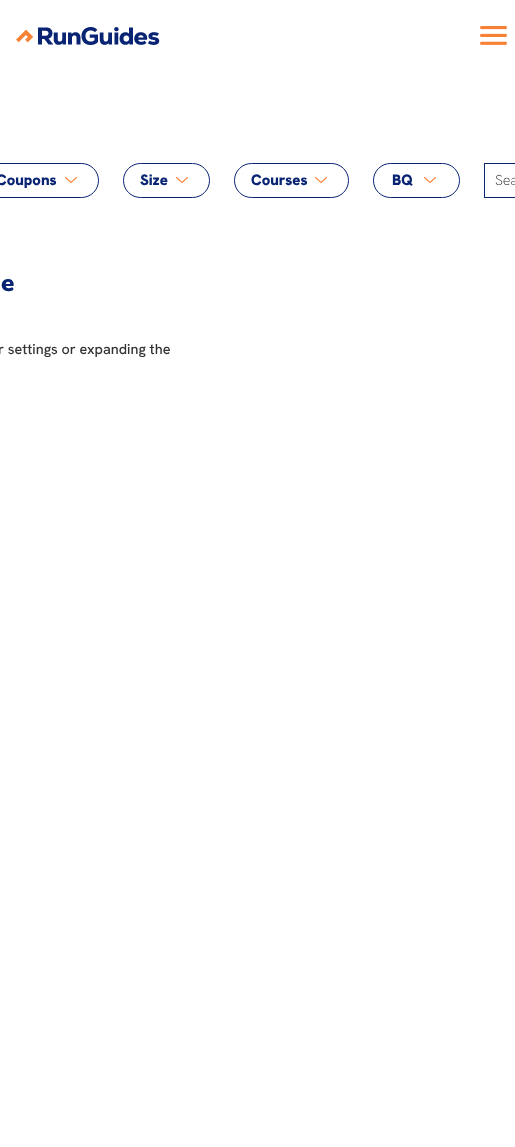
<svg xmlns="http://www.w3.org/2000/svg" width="515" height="1147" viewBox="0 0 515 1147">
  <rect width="100%" height="100%" fill="rgb(255,255,255)"/>
  <image x="16" y="27" width="144" height="18" href="pic1.png"/>
  <image x="480" y="26" width="27" height="19" href="pic2.png"/>
  <rect x="-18.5" y="163.5" width="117" height="34" rx="17" fill="none" stroke="rgb(8,36,115)"/>
  <text x="-4" y="185" font-family="Hanken Grotesk" font-size="15" font-weight="900" fill="rgb(8,36,115)">Coupons</text>
  <image x="65" y="177" width="12" height="6" href="pic3.png"/>
  <rect x="123.5" y="163.5" width="86" height="34" rx="17" fill="none" stroke="rgb(8,36,115)"/>
  <text x="140" y="185" font-family="Hanken Grotesk" font-size="15" font-weight="900" fill="rgb(8,36,115)">Size</text>
  <image x="176" y="177" width="12" height="6" href="pic3.png"/>
  <rect x="234.5" y="163.5" width="114" height="34" rx="17" fill="none" stroke="rgb(8,36,115)"/>
  <text x="251" y="185" font-family="Hanken Grotesk" font-size="15" font-weight="900" fill="rgb(8,36,115)">Courses</text>
  <image x="315" y="177" width="12" height="6" href="pic3.png"/>
  <rect x="373.5" y="163.5" width="86" height="34" rx="17" fill="none" stroke="rgb(8,36,115)"/>
  <text x="392" y="185" font-family="Hanken Grotesk" font-size="15" font-weight="900" fill="rgb(8,36,115)">BQ</text>
  <image x="424" y="177" width="12" height="6" href="pic3.png"/>
  <rect x="484.5" y="163.5" width="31" height="34" fill="none" stroke="rgb(8,36,115)"/>
  <text x="495" y="185" font-family="Hanken Grotesk" font-size="14.4" font-weight="200" fill="rgb(26,26,26)">Sea</text>
  <text x="1" y="291" font-family="Nunito" font-size="24" font-weight="900" fill="rgb(8,36,115)">e</text>
  <text x="-2" y="354" font-family="Hanken Grotesk" font-size="14.4" font-weight="500" fill="rgb(51,51,51)">r settings or expanding the</text>
</svg>
